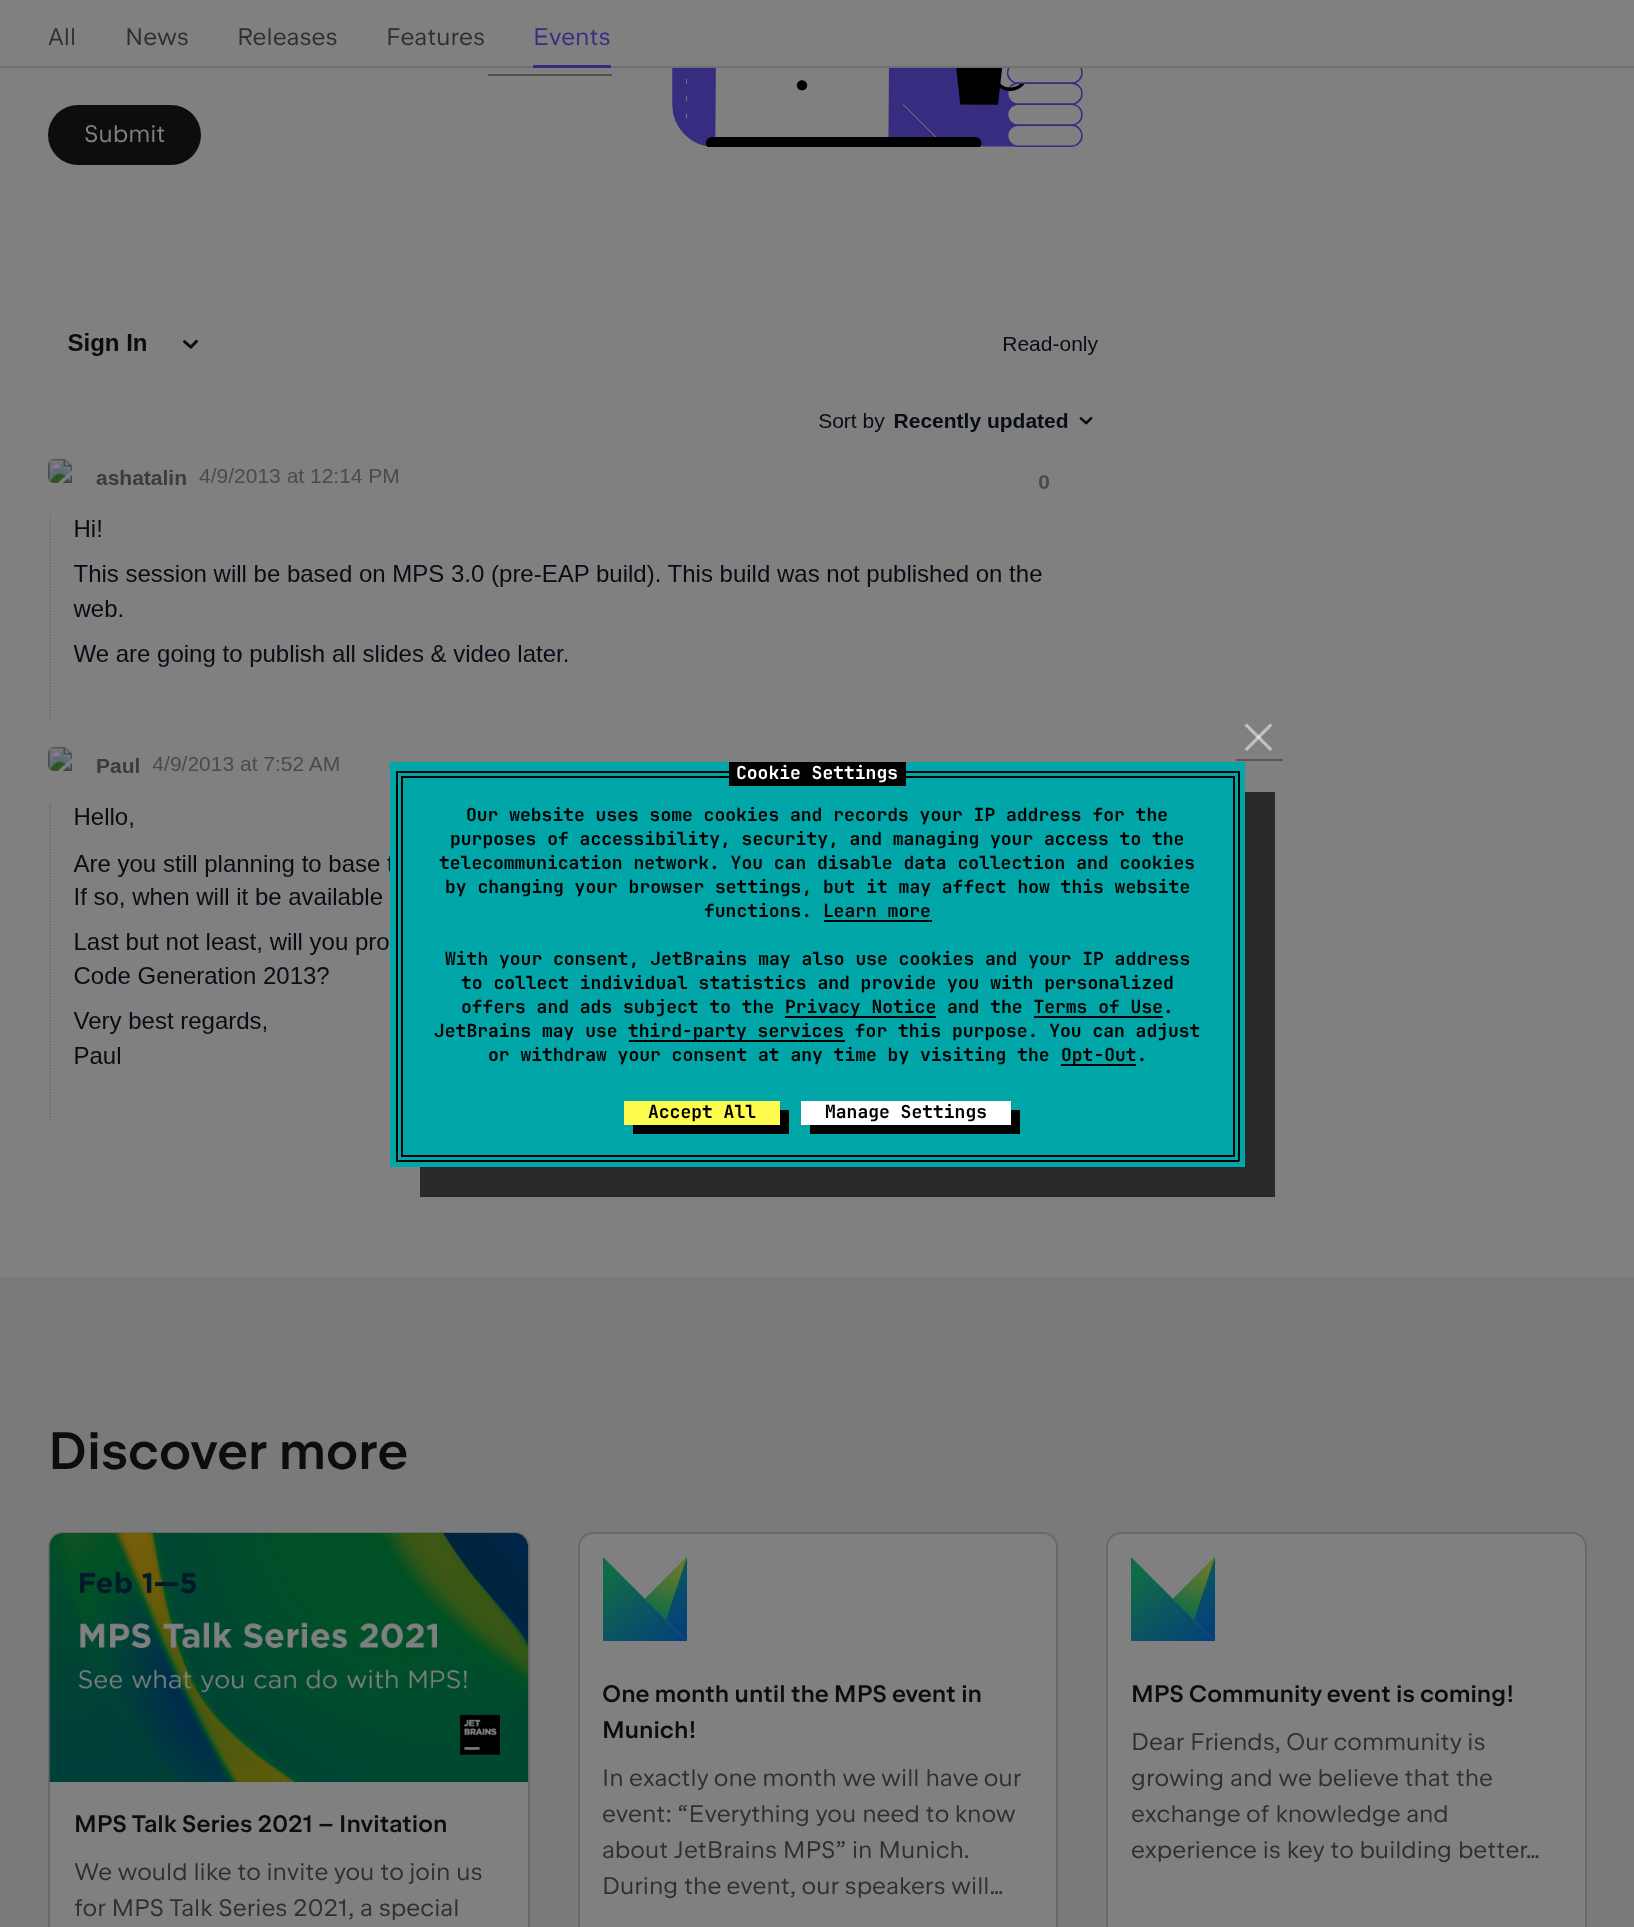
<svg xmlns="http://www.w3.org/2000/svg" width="1634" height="1927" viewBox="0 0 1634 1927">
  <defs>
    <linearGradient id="g1" gradientUnits="userSpaceOnUse" x1="667" y1="1669" x2="587" y2="1566"><stop offset="0.06" stop-color="rgb(4,62,125)"/><stop offset="0.87" stop-color="rgb(17,108,69)"/></linearGradient>
    <linearGradient id="g2" gradientUnits="userSpaceOnUse" x1="710" y1="1635" x2="630" y2="1532"><stop offset="0.05" stop-color="rgb(4,62,125)"/><stop offset="0.18" stop-color="rgb(5,66,120)"/><stop offset="0.39" stop-color="rgb(8,76,107)"/><stop offset="0.67" stop-color="rgb(13,93,86)"/><stop offset="0.87" stop-color="rgb(17,108,69)"/></linearGradient>
    <linearGradient id="g3" gradientUnits="userSpaceOnUse" x1="651" y1="1622" x2="680" y2="1544"><stop offset="0.12" stop-color="rgb(17,108,69)"/><stop offset="0.36" stop-color="rgb(53,113,58)"/><stop offset="0.58" stop-color="rgb(84,118,49)"/><stop offset="0.77" stop-color="rgb(107,121,42)"/><stop offset="0.92" stop-color="rgb(121,123,38)"/><stop offset="1" stop-color="rgb(126,124,37)"/></linearGradient>
    <linearGradient id="g4" gradientUnits="userSpaceOnUse" x1="1195" y1="1669" x2="1115" y2="1566"><stop offset="0.06" stop-color="rgb(4,62,125)"/><stop offset="0.87" stop-color="rgb(17,108,69)"/></linearGradient>
    <linearGradient id="g5" gradientUnits="userSpaceOnUse" x1="1238" y1="1635" x2="1158" y2="1532"><stop offset="0.05" stop-color="rgb(4,62,125)"/><stop offset="0.18" stop-color="rgb(5,66,120)"/><stop offset="0.39" stop-color="rgb(8,76,107)"/><stop offset="0.67" stop-color="rgb(13,93,86)"/><stop offset="0.87" stop-color="rgb(17,108,69)"/></linearGradient>
    <linearGradient id="g6" gradientUnits="userSpaceOnUse" x1="1179" y1="1622" x2="1208" y2="1544"><stop offset="0.12" stop-color="rgb(17,108,69)"/><stop offset="0.36" stop-color="rgb(53,113,58)"/><stop offset="0.58" stop-color="rgb(84,118,49)"/><stop offset="0.77" stop-color="rgb(107,121,42)"/><stop offset="0.92" stop-color="rgb(121,123,38)"/><stop offset="1" stop-color="rgb(126,124,37)"/></linearGradient>
  </defs>
  <rect width="100%" height="100%" fill="rgb(128,128,128)"/>
  <g font-family="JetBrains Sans" font-size="24" fill="rgb(47,47,48)">
    <text x="48" y="45">All</text>
    <text x="125" y="45">News</text>
    <text x="237" y="45">Releases</text>
    <text x="386" y="45">Features</text>
  </g>
  <text x="533" y="45" font-family="JetBrains Sans" font-size="24" fill="rgb(54,44,128)">Events</text>
  <rect x="0" y="66" width="1634" height="2" fill="rgb(112,112,112)"/>
  <rect x="533" y="65" width="78" height="3" fill="rgb(54,44,128)"/>
  <rect x="488" y="74" width="124" height="2" fill="rgb(82,82,82)"/>
  <rect x="48" y="105" width="153" height="60" rx="30" fill="rgb(13,13,14)"/>
  <text x="84" y="142" font-family="JetBrains Sans" font-size="24" fill="rgb(128,128,128)">Submit</text>
  <image x="672" y="68" width="411" height="79" href="pic1.png"/>
  <image x="48" y="333" width="1050" height="788" href="pic2.png"/>
  <rect x="0" y="1277" width="1634" height="650" fill="rgb(122,122,122)"/>
  <text x="48" y="1469" font-family="JetBrains Sans" font-size="52.5" font-weight="600" fill="rgb(13,13,14)">Discover more</text>
  <rect x="48" y="1532" width="482" height="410" rx="15" fill="rgb(128,128,128)"/>
  <rect x="49" y="1533" width="480" height="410" rx="14" fill="none" stroke="rgba(13,13,14,0.2)" stroke-width="2"/>
  <image x="49" y="1533" width="479" height="249" href="pic3.png"/>
  <text x="74" y="1832" font-family="JetBrains Sans" font-size="24" font-weight="600" fill="rgb(13,13,14)">MPS Talk Series 2021 – Invitation</text>
  <g font-family="JetBrains Sans" font-size="24" fill="rgb(47,47,48)">
    <text>
      <tspan x="74" y="1880">We would like to invite you to join us</tspan>
      <tspan x="74" y="1916">for MPS Talk Series 2021, a special</tspan>
    </text>
  </g>
  <rect x="578" y="1532" width="480" height="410" rx="15" fill="rgb(128,128,128)"/>
  <rect x="579" y="1533" width="478" height="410" rx="14" fill="none" stroke="rgba(13,13,14,0.2)" stroke-width="2"/>
  <path d="M603 1641H687L603 1557Z" fill="url(#g1)"/>
  <path d="M687 1641L645 1599L687 1557Z" fill="url(#g2)"/>
  <path d="M666 1620L645 1599L687 1557Z" fill="url(#g3)"/>
  <g font-family="JetBrains Sans" font-size="24" font-weight="600" fill="rgb(13,13,14)">
    <text>
      <tspan x="602" y="1702">One month until the MPS event in</tspan>
      <tspan x="602" y="1738">Munich!</tspan>
    </text>
  </g>
  <g font-family="JetBrains Sans" font-size="24" fill="rgb(47,47,48)">
    <text>
      <tspan x="602" y="1786">In exactly one month we will have our</tspan>
      <tspan x="602" y="1822">event: “Everything you need to know</tspan>
      <tspan x="602" y="1858">about JetBrains MPS” in Munich.</tspan>
      <tspan x="602" y="1894">During the event, our speakers will…</tspan>
    </text>
  </g>
  <rect x="1106" y="1532" width="481" height="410" rx="15" fill="rgb(128,128,128)"/>
  <rect x="1107" y="1533" width="479" height="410" rx="14" fill="none" stroke="rgba(13,13,14,0.2)" stroke-width="2"/>
  <path d="M1131 1641H1215L1131 1557Z" fill="url(#g4)"/>
  <path d="M1215 1641L1173 1599L1215 1557Z" fill="url(#g5)"/>
  <path d="M1194 1620L1173 1599L1215 1557Z" fill="url(#g6)"/>
  <text x="1131" y="1702" font-family="JetBrains Sans" font-size="24" font-weight="600" fill="rgb(13,13,14)">MPS Community event is coming!</text>
  <g font-family="JetBrains Sans" font-size="24" fill="rgb(47,47,48)">
    <text x="1131" y="1750">Dear Friends,</text>
    <text x="1286" y="1750">Our community is</text>
    <text>
      <tspan x="1131" y="1786">growing and we believe that the</tspan>
      <tspan x="1131" y="1822">exchange of knowledge and</tspan>
      <tspan x="1131" y="1858">experience is key to building better…</tspan>
    </text>
  </g>
  <path d="M420 1167V1197H1275V792H1245V1167Z" fill="rgb(41,41,41)"/>
  <rect x="390" y="762" width="855" height="405" fill="rgb(1,167,168)"/>
  <rect x="1236" y="759" width="47" height="2" fill="rgb(87,87,88)"/>
  <path d="M1244.5 749L1270 723.5L1272.5 725.5L1247 751Z" fill="rgb(191,191,191)"/>
  <path d="M1247 723.5L1272.5 749L1270 751L1244.5 725.5Z" fill="rgba(255,255,255,0.5)"/>
  <rect x="401" y="776" width="834" height="2" fill="rgb(0,0,0)"/>
  <rect x="1233" y="776" width="2" height="381" fill="rgb(0,0,0)"/>
  <rect x="401" y="776" width="2" height="325" fill="rgb(0,0,0)"/>
  <rect x="396" y="771" width="843" height="2" fill="rgb(0,0,0)"/>
  <rect x="729" y="762" width="177" height="24" fill="rgb(0,0,0)"/>
  <text x="736" y="779" font-family="JetBrains Mono" font-size="18" font-weight="bold" fill="rgb(255,255,255)">Cookie Settings</text>
  <rect x="1238" y="771" width="2" height="390" fill="rgb(0,0,0)"/>
  <rect x="396" y="771" width="2" height="329" fill="rgb(0,0,0)"/>
  <g font-family="JetBrains Mono" font-size="18" font-weight="bold" fill="rgb(0,0,0)">
    <text x="466" y="821">Our website uses some cookies and records your IP address for the</text>
    <text x="450" y="845">purposes of accessibility, security, and managing your access to the</text>
    <text x="439" y="869">telecommunication network. You can disable data collection and cookies</text>
    <text x="445" y="893">by changing your browser settings, but it may affect how this website</text>
    <text x="704" y="917">functions. Learn more</text>
  </g>
  <rect x="824" y="920" width="108" height="2" fill="rgb(0,0,0)"/>
  <g font-family="JetBrains Mono" font-size="18" font-weight="bold" fill="rgb(0,0,0)">
    <text x="445" y="965">With your consent, JetBrains may also use cookies and your IP address</text>
    <text>
      <tspan x="461" y="989">to collect individual statistics and provide you with personalized</tspan>
      <tspan x="461" y="1013">offers and ads subject to the</tspan>
    </text>
  </g>
  <rect x="785" y="1016" width="151" height="2" fill="rgb(0,0,0)"/>
  <text x="785" y="1013" font-family="JetBrains Mono" font-size="18" font-weight="bold" fill="rgb(0,0,0)">Privacy Notice and the Terms of Use.</text>
  <rect x="1034" y="1016" width="129" height="2" fill="rgb(0,0,0)"/>
  <text x="434" y="1037" font-family="JetBrains Mono" font-size="18" font-weight="bold" fill="rgb(0,0,0)">JetBrains may use</text>
  <rect x="629" y="1040" width="216" height="2" fill="rgb(0,0,0)"/>
  <g font-family="JetBrains Mono" font-size="18" font-weight="bold" fill="rgb(0,0,0)">
    <text x="628" y="1037">third-party services for this purpose. You can adjust</text>
    <text x="488" y="1061">or withdraw your consent at any time by visiting the</text>
  </g>
  <rect x="1061" y="1064" width="75" height="2" fill="rgb(0,0,0)"/>
  <text x="1061" y="1061" font-family="JetBrains Mono" font-size="18" font-weight="bold" fill="rgb(0,0,0)">Opt-Out.</text>
  <rect x="401" y="1155" width="834" height="2" fill="rgb(0,0,0)"/>
  <rect x="401" y="1101" width="2" height="56" fill="rgb(0,0,0)"/>
  <rect x="396" y="1160" width="843" height="2" fill="rgb(0,0,0)"/>
  <rect x="396" y="1100" width="2" height="61" fill="rgb(0,0,0)"/>
  <path d="M633 1125V1134H789V1110H780V1125Z" fill="rgb(0,0,0)"/>
  <rect x="624" y="1101" width="156" height="24" fill="rgb(254,252,79)"/>
  <text x="648" y="1118" font-family="JetBrains Mono" font-size="18" font-weight="bold" fill="rgb(0,0,0)">Accept All</text>
  <path d="M810 1125V1134H1020V1110H1011V1125Z" fill="rgb(0,0,0)"/>
  <rect x="801" y="1101" width="210" height="24" fill="rgb(255,255,255)"/>
  <text x="825" y="1118" font-family="JetBrains Mono" font-size="18" font-weight="bold" fill="rgb(0,0,0)">Manage Settings</text>
</svg>
